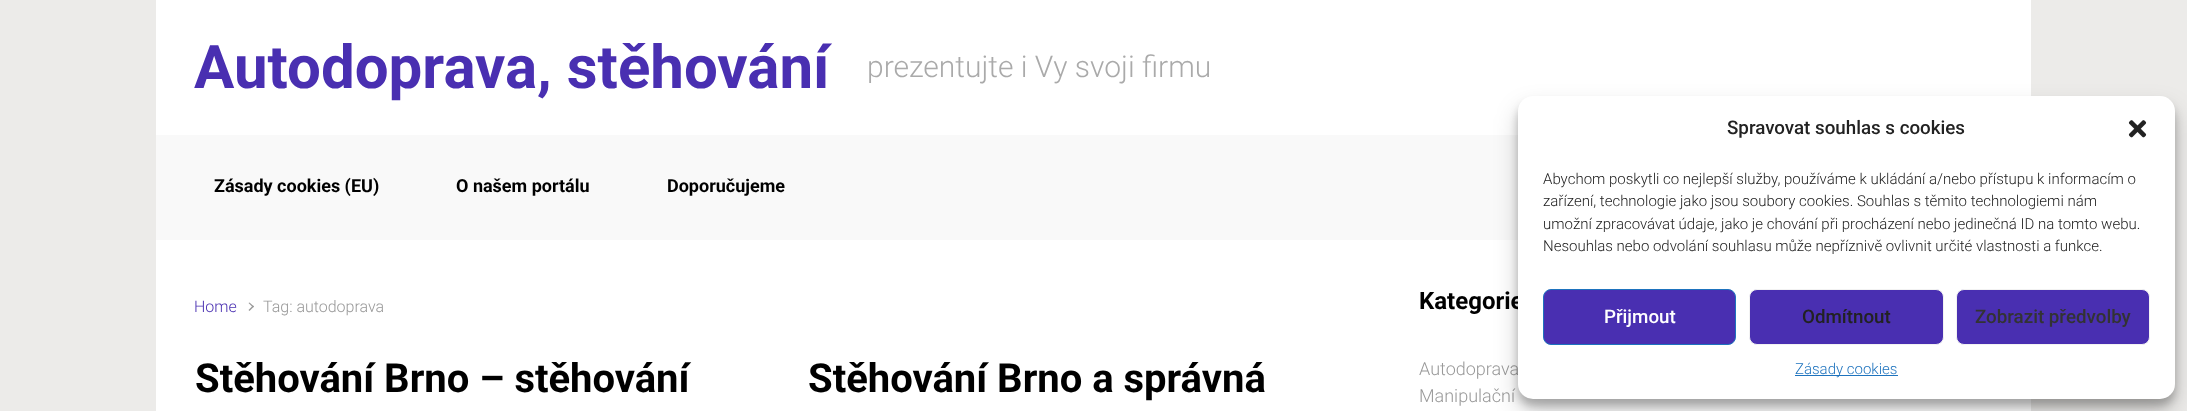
<svg xmlns="http://www.w3.org/2000/svg" width="2187" height="411" viewBox="0 0 2187 411">
  <rect width="100%" height="100%" fill="rgb(236,235,233)"/>
  <rect x="156" y="135" width="1362" height="105" fill="rgb(249,249,249)"/>
  <rect x="156" y="0" width="1875" height="135" fill="rgb(255,255,255)"/>
  <text x="194" y="88" font-family="Roboto" font-size="60" font-weight="bold" fill="rgb(73,47,177)">Autodoprava, stěhování</text>
  <text x="867" y="77" font-family="Roboto" font-size="30" font-weight="300" fill="rgb(170,170,170)">prezentujte i Vy svoji firmu</text>
  <g font-family="Roboto" font-size="18" font-weight="bold" fill="rgb(0,0,0)">
    <text x="214" y="192">Zásady cookies (EU)</text>
    <text x="456" y="192">O našem portálu</text>
    <text x="667" y="192">Doporučujeme</text>
  </g>
  <rect x="156" y="240" width="1875" height="171" fill="rgb(255,255,255)"/>
  <text x="194" y="312" font-family="Roboto" font-size="16" font-weight="300" fill="rgb(73,47,177)">Home</text>
  <path d="M248.5 303L249.5 302.5L254 306.5L253 307.5Z" fill="rgb(153,153,153)"/>
  <path d="M248.5 310L253 305.5L254 306.5L249.5 311Z" fill="rgb(153,153,153)"/>
  <text x="263" y="312" font-family="Roboto" font-size="16" font-weight="300" fill="rgb(153,153,153)">Tag: autodoprava</text>
  <g font-family="Roboto" font-size="40" font-weight="bold" fill="rgb(0,0,0)">
    <text x="195" y="392">Stěhování Brno – stěhování</text>
    <text x="808" y="392">Stěhování Brno a správná</text>
  </g>
  <text x="1419" y="309" font-family="Roboto" font-size="24" font-weight="bold" fill="rgb(0,0,0)">Kategorie</text>
  <g font-family="Roboto" font-size="18" font-weight="300" fill="rgb(153,153,153)">
    <text>
      <tspan x="1419" y="375">Autodoprava</tspan>
      <tspan x="1419" y="402">Manipulační</tspan>
    </text>
  </g>
  <rect x="1518" y="104" width="657" height="302" rx="15" fill="rgba(0,0,0,0.23)" filter="blur(4px)"/>
  <rect x="1518" y="109" width="657" height="302" rx="15" fill="rgba(0,0,0,0.19)" filter="blur(12.5px)"/>
  <rect x="1518" y="96" width="657" height="303" rx="15" fill="rgb(255,255,255)"/>
  <text x="1727" y="134" font-family="Roboto" font-size="18.75" font-weight="500" fill="rgb(34,34,34)">Spravovat souhlas s cookies</text>
  <image x="2128" y="120" width="19" height="18" href="pic1.png"/>
  <g font-family="Roboto" font-size="15" font-weight="300" fill="rgb(34,34,34)">
    <text>
      <tspan x="1543" y="184">Abychom poskytli co nejlepší služby, používáme k ukládání a/nebo přístupu k informacím o</tspan>
      <tspan x="1543" y="206">zařízení, technologie jako jsou soubory cookies. Souhlas s těmito technologiemi nám</tspan>
      <tspan x="1543" y="229">umožní zpracovávat údaje, jako je chování při procházení nebo jedinečná ID na tomto webu.</tspan>
      <tspan x="1543" y="251">Nesouhlas nebo odvolání souhlasu může nepříznivě ovlivnit určité vlastnosti a funkce.</tspan>
    </text>
  </g>
  <rect x="1543.5" y="289.5" width="192" height="55" rx="7.5" fill="rgb(73,47,177)" stroke="rgb(30,115,190)"/>
  <text x="1604" y="323" font-family="Roboto" font-size="18.75" font-weight="500" fill="rgb(255,255,255)">Přijmout</text>
  <rect x="1749.5" y="289.5" width="194" height="55" rx="7.5" fill="rgb(73,47,177)" stroke="rgb(242,242,242)"/>
  <text x="1802" y="323" font-family="Roboto" font-size="18.75" font-weight="500" fill="rgb(34,34,34)">Odmítnout</text>
  <rect x="1956.5" y="289.5" width="193" height="55" rx="7.5" fill="rgb(73,47,177)" stroke="rgb(242,242,242)"/>
  <text x="1975" y="323" font-family="Roboto" font-size="18.75" font-weight="500" fill="rgb(51,51,51)">Zobrazit předvolby</text>
  <rect x="1795" y="375" width="103" height="1" fill="rgb(30,115,190)"/>
  <text x="1795" y="374" font-family="Roboto" font-size="15" font-weight="300" fill="rgb(30,115,190)">Zásady cookies</text>
</svg>
